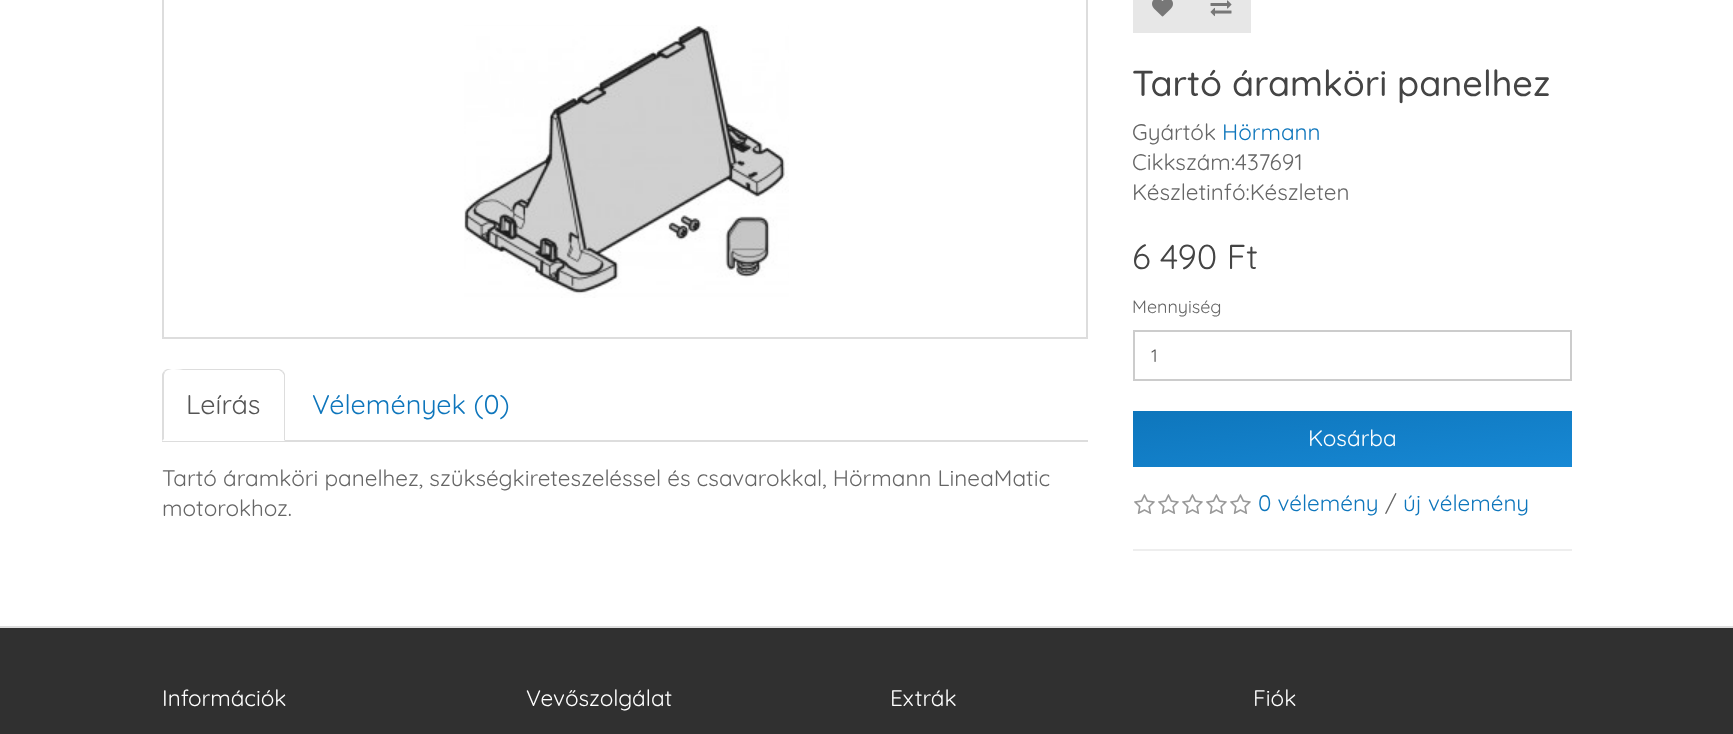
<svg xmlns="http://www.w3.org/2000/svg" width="1733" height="734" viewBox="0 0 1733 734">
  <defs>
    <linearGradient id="g1" gradientUnits="userSpaceOnUse" x1="1345" y1="384" x2="1359" y2="493"><stop offset="0" stop-color="rgb(14,118,188)"/><stop offset="1" stop-color="rgb(23,136,212)"/></linearGradient>
  </defs>
  <rect width="100%" height="100%" fill="rgb(255,255,255)"/>
  <rect x="163" y="-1" width="924" height="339" fill="none" stroke="rgb(221,221,221)" stroke-width="2"/>
  <image x="464" y="25" width="325" height="273" href="pic1.png"/>
  <rect x="162" y="440" width="926" height="2" fill="rgb(221,221,221)"/>
  <path d="M168 369H279C282.5 369 285 371.5 285 375V441H162V375C162 371.5 164.5 369 168 369Z" fill="rgb(255,255,255)"/>
  <path d="M168 369C166 369 165 370 164 371L165 372L166 371C172 367 180 370 186 370H279L282 372L283 371C282 370 280 369 279 369Z" fill="rgb(221,221,221)"/>
  <path d="M285 441V375C285 374 284 372 283 371L282 372L284 375V440Z" fill="rgb(221,221,221)"/>
  <path d="M162 441L164 439V375L165 372L164 371C163 372 162 374 162 375Z" fill="rgb(221,221,221)"/>
  <text x="186" y="414" font-family="Quicksand" font-size="27" fill="rgb(85,85,85)">Leírás</text>
  <text x="312" y="414" font-family="Quicksand" font-size="27" fill="rgb(14,118,188)">Vélemények (0)</text>
  <g font-family="Quicksand" font-size="22.5" fill="rgb(102,102,102)">
    <text>
      <tspan x="162" y="486">Tartó áramköri panelhez, szükségkireteszeléssel és csavarokkal, Hörmann LineaMatic</tspan>
      <tspan x="162" y="516">motorokhoz.</tspan>
    </text>
  </g>
  <rect x="1133" y="0" width="118" height="33" fill="rgb(231,231,231)"/>
  <image x="1152" y="0" width="21" height="17" href="pic2.png"/>
  <image x="1210" y="0" width="22" height="17" href="pic3.png"/>
  <text x="1132" y="96" font-family="Quicksand" font-size="36" font-weight="500" fill="rgb(68,68,68)">Tartó áramköri panelhez</text>
  <text x="1132" y="140" font-family="Quicksand" font-size="22.5" fill="rgb(102,102,102)">Gyártók</text>
  <text x="1222" y="140" font-family="Quicksand" font-size="22.5" fill="rgb(14,118,188)">Hörmann</text>
  <g font-family="Quicksand" font-size="22.5" fill="rgb(102,102,102)">
    <text>
      <tspan x="1132" y="170">Cikkszám:437691</tspan>
      <tspan x="1132" y="200">Készletinfó:Készleten</tspan>
    </text>
  </g>
  <text x="1132" y="269" font-family="Quicksand" font-size="34.5" fill="rgb(68,68,68)">6 490 Ft</text>
  <text x="1132" y="313" font-family="Quicksand" font-size="18" fill="rgb(102,102,102)">Mennyiség</text>
  <rect x="1134" y="331" width="437" height="49" fill="none" stroke="rgb(204,204,204)" stroke-width="2"/>
  <text x="1151" y="362" font-family="Quicksand" font-size="18" fill="rgb(85,85,85)">1</text>
  <rect x="1133" y="411" width="439" height="56" fill="url(#g1)"/>
  <text x="1308" y="446" font-family="Quicksand" font-size="22.5" fill="rgb(255,255,255)">Kosárba</text>
  <image x="1134" y="494" width="21" height="20" href="pic4.png"/>
  <image x="1158" y="494" width="21" height="20" href="pic4.png"/>
  <image x="1182" y="494" width="21" height="20" href="pic4.png"/>
  <image x="1206" y="494" width="21" height="20" href="pic4.png"/>
  <image x="1230" y="494" width="21" height="20" href="pic4.png"/>
  <text x="1258" y="511" font-family="Quicksand" font-size="22.5" fill="rgb(14,118,188)">0 vélemény</text>
  <text x="1385" y="511" font-family="Quicksand" font-size="22.5" fill="rgb(102,102,102)">/</text>
  <text x="1403" y="511" font-family="Quicksand" font-size="22.5" fill="rgb(14,118,188)">új vélemény</text>
  <rect x="1133" y="549" width="439" height="2" fill="rgb(238,238,238)"/>
  <rect x="0" y="628" width="1733" height="106" fill="rgb(48,48,48)"/>
  <rect x="0" y="626" width="1733" height="2" fill="rgb(221,221,221)"/>
  <g font-family="Quicksand" font-size="22.5" fill="rgb(255,255,255)">
    <text x="162" y="706">Információk</text>
    <text x="526" y="706">Vevőszolgálat</text>
    <text x="890" y="706">Extrák</text>
    <text x="1253" y="706">Fiók</text>
  </g>
</svg>
